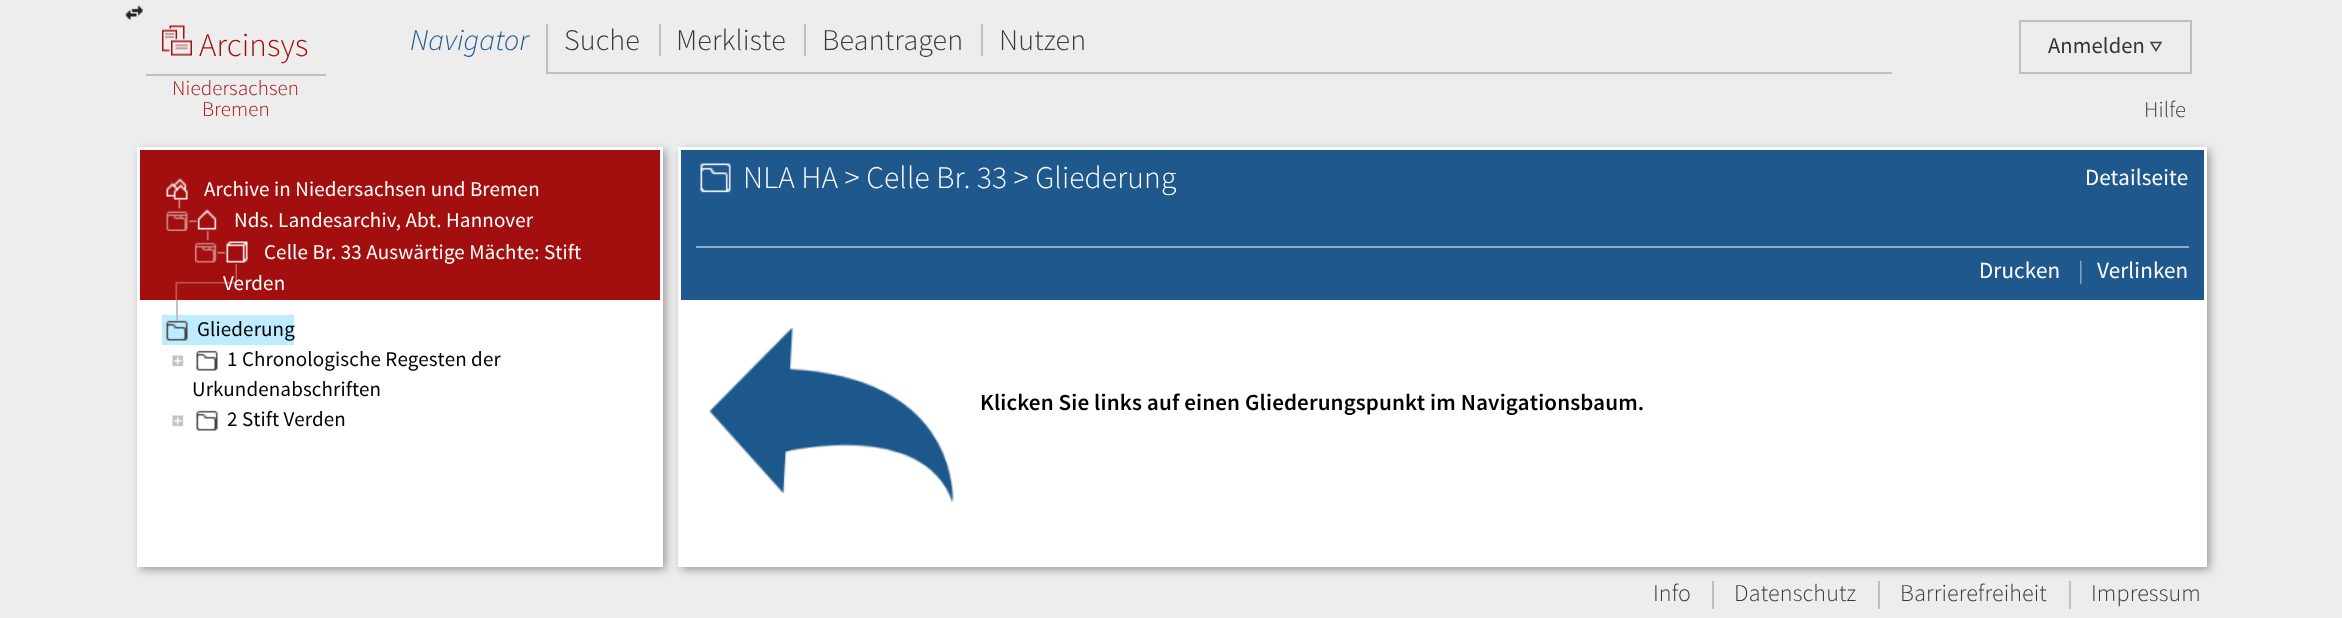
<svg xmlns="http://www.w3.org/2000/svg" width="2342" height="618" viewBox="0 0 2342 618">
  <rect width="100%" height="100%" fill="rgb(237,237,237)"/>
  <image x="125" y="5" width="18" height="15" href="pic1.png"/>
  <image x="162" y="25" width="30" height="31" href="pic2.png"/>
  <text x="199" y="56" font-family="Source Sans Pro" font-size="33" font-weight="300" letter-spacing="0.12" fill="rgb(163,15,15)">Arcinsys</text>
  <rect x="146" y="74" width="180" height="2" fill="rgb(192,192,192)"/>
  <g font-family="Source Sans Pro" font-size="21" font-weight="300" letter-spacing="0.12" fill="rgb(163,15,15)">
    <text x="172" y="95">Niedersachsen</text>
    <text x="202" y="116">Bremen</text>
  </g>
  <rect x="546" y="72" width="1346" height="2" fill="rgb(192,192,192)"/>
  <text x="410" y="50" font-family="Source Sans Pro" font-size="30" font-weight="300" font-style="italic" letter-spacing="0.12" fill="rgb(30,88,140)">Navigator</text>
  <rect x="546" y="24" width="2" height="48" fill="rgb(192,192,192)"/>
  <text x="564" y="50" font-family="Source Sans Pro" font-size="30" font-weight="300" letter-spacing="0.12" fill="rgb(57,57,57)">Suche</text>
  <rect x="659" y="24" width="2" height="32" fill="rgb(192,192,192)"/>
  <text x="676" y="50" font-family="Source Sans Pro" font-size="30" font-weight="300" letter-spacing="0.12" fill="rgb(57,57,57)">Merkliste</text>
  <rect x="804" y="24" width="2" height="32" fill="rgb(192,192,192)"/>
  <text x="822" y="50" font-family="Source Sans Pro" font-size="30" font-weight="300" letter-spacing="0.12" fill="rgb(57,57,57)">Beantragen</text>
  <rect x="981" y="24" width="2" height="32" fill="rgb(192,192,192)"/>
  <text x="999" y="50" font-family="Source Sans Pro" font-size="30" font-weight="300" letter-spacing="0.12" fill="rgb(57,57,57)">Nutzen</text>
  <rect x="2020" y="21" width="171" height="52" fill="none" stroke="rgb(192,192,192)" stroke-width="2"/>
  <text x="2048" y="53" font-family="Source Sans Pro" font-size="22.5" letter-spacing="0.12" fill="rgb(51,51,51)">Anmelden</text>
  <path d="M2151 42.5H2161L2156 50.5Z" fill="none" stroke="rgb(66,66,66)" stroke-width="1.5"/>
  <text x="2144" y="117" font-family="Source Sans Pro" font-size="22.5" font-weight="300" letter-spacing="0.12" fill="rgb(57,57,57)">Hilfe</text>
  <rect x="140" y="150" width="526" height="420" fill="rgba(0,0,0,0.33)" filter="blur(4px)"/>
  <rect x="137" y="147" width="526" height="420" fill="rgb(255,255,255)"/>
  <rect x="140" y="150" width="520" height="150" fill="rgb(163,15,15)"/>
  <image x="166" y="178" width="22" height="22" href="pic3.png"/>
  <text x="204" y="196" font-family="Source Sans Pro" font-size="21" letter-spacing="0.12" fill="rgb(255,255,255)">Archive in Niedersachsen und Bremen</text>
  <image x="166" y="199" width="31" height="32" href="pic4.png"/>
  <image x="197" y="209" width="20" height="21" href="pic5.png"/>
  <text x="234" y="227" font-family="Source Sans Pro" font-size="21" letter-spacing="0.12" fill="rgb(255,255,255)">Nds. Landesarchiv, Abt. Hannover</text>
  <image x="195" y="230" width="31" height="33" href="pic6.png"/>
  <image x="226" y="241" width="22" height="22" href="pic7.png"/>
  <g font-family="Source Sans Pro" font-size="21" letter-spacing="0.12" fill="rgb(255,255,255)">
    <text x="264" y="259">Celle Br. 33 Auswärtige Mächte: Stift</text>
    <text x="223" y="290">Verden</text>
  </g>
  <image x="175" y="264" width="62" height="36" href="pic8.png"/>
  <rect x="162" y="315" width="132" height="30" fill="rgb(190,235,255)"/>
  <image x="166" y="320" width="22" height="21" href="pic9.png"/>
  <rect x="176" y="300" width="2" height="21" fill="rgb(193,193,193)"/>
  <text x="197" y="336" font-family="Source Sans Pro" font-size="21" letter-spacing="0.12" fill="rgb(0,0,0)">Gliederung</text>
  <image x="172" y="355" width="12" height="12" href="pic10.png"/>
  <image x="196" y="350" width="22" height="21" href="pic11.png"/>
  <g font-family="Source Sans Pro" font-size="21" letter-spacing="0.12" fill="rgb(0,0,0)">
    <text x="227" y="366">1 Chronologische Regesten der</text>
    <text x="192" y="396">Urkundenabschriften</text>
  </g>
  <image x="172" y="415" width="12" height="12" href="pic10.png"/>
  <image x="196" y="410" width="22" height="21" href="pic11.png"/>
  <text x="227" y="426" font-family="Source Sans Pro" font-size="21" letter-spacing="0.12" fill="rgb(0,0,0)">2 Stift Verden</text>
  <rect x="681" y="150" width="1529" height="420" fill="rgba(0,0,0,0.33)" filter="blur(4px)"/>
  <rect x="678" y="147" width="1529" height="420" fill="rgb(255,255,255)"/>
  <rect x="681" y="150" width="1523" height="150" fill="rgb(30,88,140)"/>
  <image x="700" y="163" width="31" height="30" href="pic12.png"/>
  <text x="743" y="188" font-family="Source Sans Pro" font-size="31.5" font-weight="300" letter-spacing="0.12" fill="rgb(255,255,255)">NLA HA &gt; Celle Br. 33 &gt; Gliederung</text>
  <text x="2085" y="185" font-family="Source Sans Pro" font-size="23.1" letter-spacing="0.12" fill="rgb(255,255,255)">Detailseite</text>
  <rect x="696" y="246" width="1493" height="2" fill="rgb(143,172,198)"/>
  <text x="1979" y="278" font-family="Source Sans Pro" font-size="23.1" letter-spacing="0.12" fill="rgb(255,255,255)">Drucken</text>
  <text x="2078" y="278" font-family="Source Sans Pro" font-size="23.1" letter-spacing="0.12" fill="rgb(143,172,198)">|</text>
  <text x="2097" y="278" font-family="Source Sans Pro" font-size="23.1" letter-spacing="0.12" fill="rgb(255,255,255)">Verlinken</text>
  <image x="709" y="327" width="245" height="176" href="pic13.png"/>
  <text x="980" y="410" font-family="Source Sans Pro" font-size="23.1" font-weight="600" letter-spacing="0.12" fill="rgb(0,0,0)">Klicken Sie links auf einen Gliederungspunkt im Navigationsbaum.</text>
  <text x="1653" y="601" font-family="Source Sans Pro" font-size="24" font-weight="300" letter-spacing="0.12" fill="rgb(57,57,57)">Info</text>
  <rect x="1712" y="581" width="2" height="28" fill="rgb(192,192,192)"/>
  <text x="1734" y="601" font-family="Source Sans Pro" font-size="24" font-weight="300" letter-spacing="0.12" fill="rgb(57,57,57)">Datenschutz</text>
  <rect x="1878" y="581" width="2" height="28" fill="rgb(192,192,192)"/>
  <text x="1900" y="601" font-family="Source Sans Pro" font-size="24" font-weight="300" letter-spacing="0.12" fill="rgb(57,57,57)">Barrierefreiheit</text>
  <rect x="2069" y="581" width="2" height="28" fill="rgb(192,192,192)"/>
  <text x="2091" y="601" font-family="Source Sans Pro" font-size="24" font-weight="300" letter-spacing="0.12" fill="rgb(57,57,57)">Impressum</text>
</svg>
